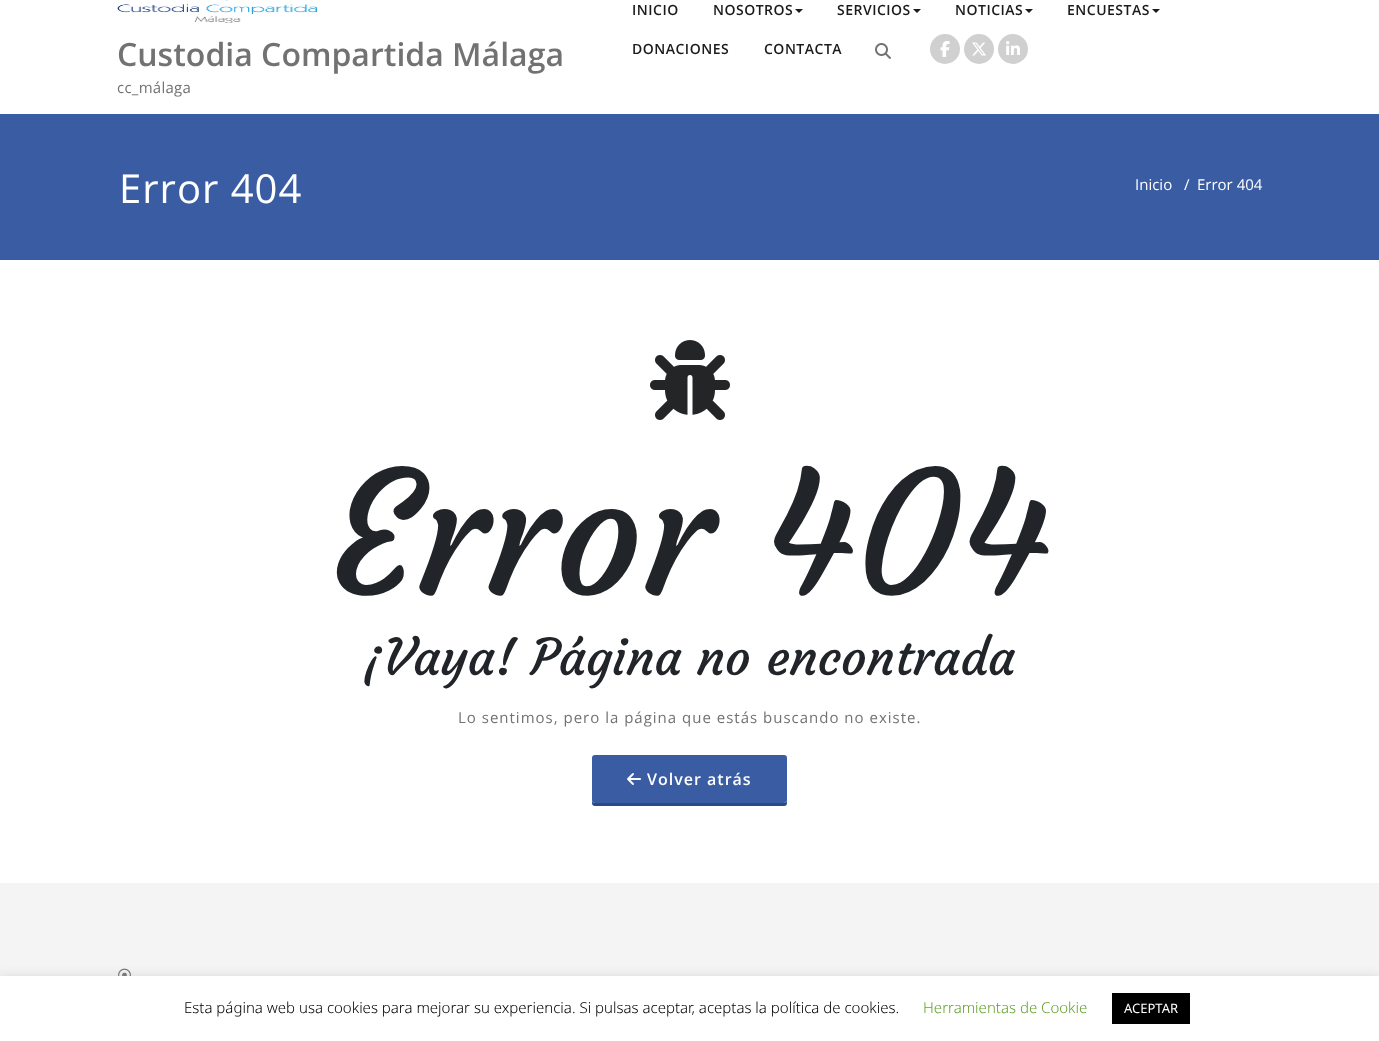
<svg xmlns="http://www.w3.org/2000/svg" width="1379" height="1041" viewBox="0 0 1379 1041">
  <rect width="100%" height="100%" fill="rgb(255,255,255)"/>
  <g font-family="Open Sans" font-size="14" font-weight="600" letter-spacing="0.5" fill="rgb(27,27,27)">
    <text x="632" y="15">INICIO</text>
    <text x="713" y="15">NOSOTROS</text>
  </g>
  <path d="M795 9H803L799 13Z" fill="rgb(27,27,27)"/>
  <text x="837" y="15" font-family="Open Sans" font-size="14" font-weight="600" letter-spacing="0.5" fill="rgb(27,27,27)">SERVICIOS</text>
  <path d="M913 9H921L917 13Z" fill="rgb(27,27,27)"/>
  <text x="955" y="15" font-family="Open Sans" font-size="14" font-weight="600" letter-spacing="0.5" fill="rgb(27,27,27)">NOTICIAS</text>
  <path d="M1025 9H1033L1029 13Z" fill="rgb(27,27,27)"/>
  <text x="1067" y="15" font-family="Open Sans" font-size="14" font-weight="600" letter-spacing="0.5" fill="rgb(27,27,27)">ENCUESTAS</text>
  <path d="M1152 9H1160L1156 13Z" fill="rgb(27,27,27)"/>
  <g font-family="Open Sans" font-size="14" font-weight="600" letter-spacing="0.5" fill="rgb(27,27,27)">
    <text x="632" y="54">DONACIONES</text>
    <text x="764" y="54">CONTACTA</text>
  </g>
  <image x="875" y="43" width="16" height="16" href="pic1.png"/>
  <circle cx="945" cy="49" r="15" fill="rgb(208,208,208)"/>
  <image x="940" y="41" width="10" height="16" href="pic2.png"/>
  <circle cx="979" cy="49" r="15" fill="rgb(208,208,208)"/>
  <image x="972" y="42" width="14" height="14" href="pic3.png"/>
  <circle cx="1013" cy="49" r="15" fill="rgb(208,208,208)"/>
  <image x="1006" y="41" width="14" height="14" href="pic4.png"/>
  <image x="117" y="0" width="200" height="23" href="pic5.png"/>
  <text x="117" y="66" font-family="Open Sans" font-size="32" font-weight="600" fill="rgb(114,114,114)">Custodia Compartida Málaga</text>
  <text x="117" y="93" font-family="Open Sans" font-size="15" letter-spacing="0.25" fill="rgb(114,114,114)">cc_málaga</text>
  <rect x="0" y="114" width="1379" height="146" fill="rgb(57,92,163)"/>
  <text x="119" y="203" font-family="Open Sans" font-size="40" letter-spacing="1" fill="rgb(255,255,255)">Error 404</text>
  <g font-family="Open Sans" font-size="15" fill="rgb(255,255,255)">
    <text x="1135" y="190">Inicio</text>
    <text x="1184" y="190">/</text>
    <text x="1197" y="190">Error 404</text>
  </g>
  <image x="650" y="340" width="80" height="80" href="pic6.png"/>
  <text x="330" y="595" font-family="Courgette" font-size="170" fill="rgb(33,37,41)">Error 404</text>
  <text x="363" y="675" font-family="Courgette" font-size="50" fill="rgb(33,37,41)">¡Vaya! Página no encontrada</text>
  <text x="458" y="723" font-family="Open Sans" font-size="15" letter-spacing="1" fill="rgb(114,114,114)">Lo sentimos, pero la página que estás buscando no existe.</text>
  <path d="M592 800V803C592 805 593 806 595 806H784C786 806 787 805 787 803V800C787 802 786 803 784 803H595C593 803 592 802 592 800Z" fill="rgb(42,73,135)"/>
  <rect x="592" y="755" width="195" height="48" rx="3" fill="rgb(57,92,163)"/>
  <image x="627" y="773" width="14" height="12" href="pic7.png"/>
  <text x="647" y="785" font-family="Open Sans" font-size="16" font-weight="600" letter-spacing="1" fill="rgb(255,255,255)">Volver atrás</text>
  <rect x="0" y="883" width="1379" height="93" fill="rgb(244,244,244)"/>
  <image x="118" y="968" width="13" height="8" href="pic8.png"/>
  <rect x="0" y="975" width="1379" height="65" fill="rgba(172,171,171,0.3)" filter="blur(5px)"/>
  <rect x="0" y="976" width="1379" height="65" fill="rgb(255,255,255)"/>
  <text x="184" y="1013" font-family="Noto Sans" font-size="15" font-weight="300" fill="rgb(0,0,0)">Esta página web usa cookies para mejorar su experiencia. Si pulsas aceptar, aceptas la política de cookies.</text>
  <text x="923" y="1013" font-family="Noto Sans" font-size="15" font-weight="300" fill="rgb(98,163,41)">Herramientas de Cookie</text>
  <rect x="1112" y="993" width="78" height="31" fill="rgb(0,0,0)"/>
  <text x="1124" y="1013" font-family="Noto Sans" font-size="13" fill="rgb(255,255,255)">ACEPTAR</text>
</svg>
